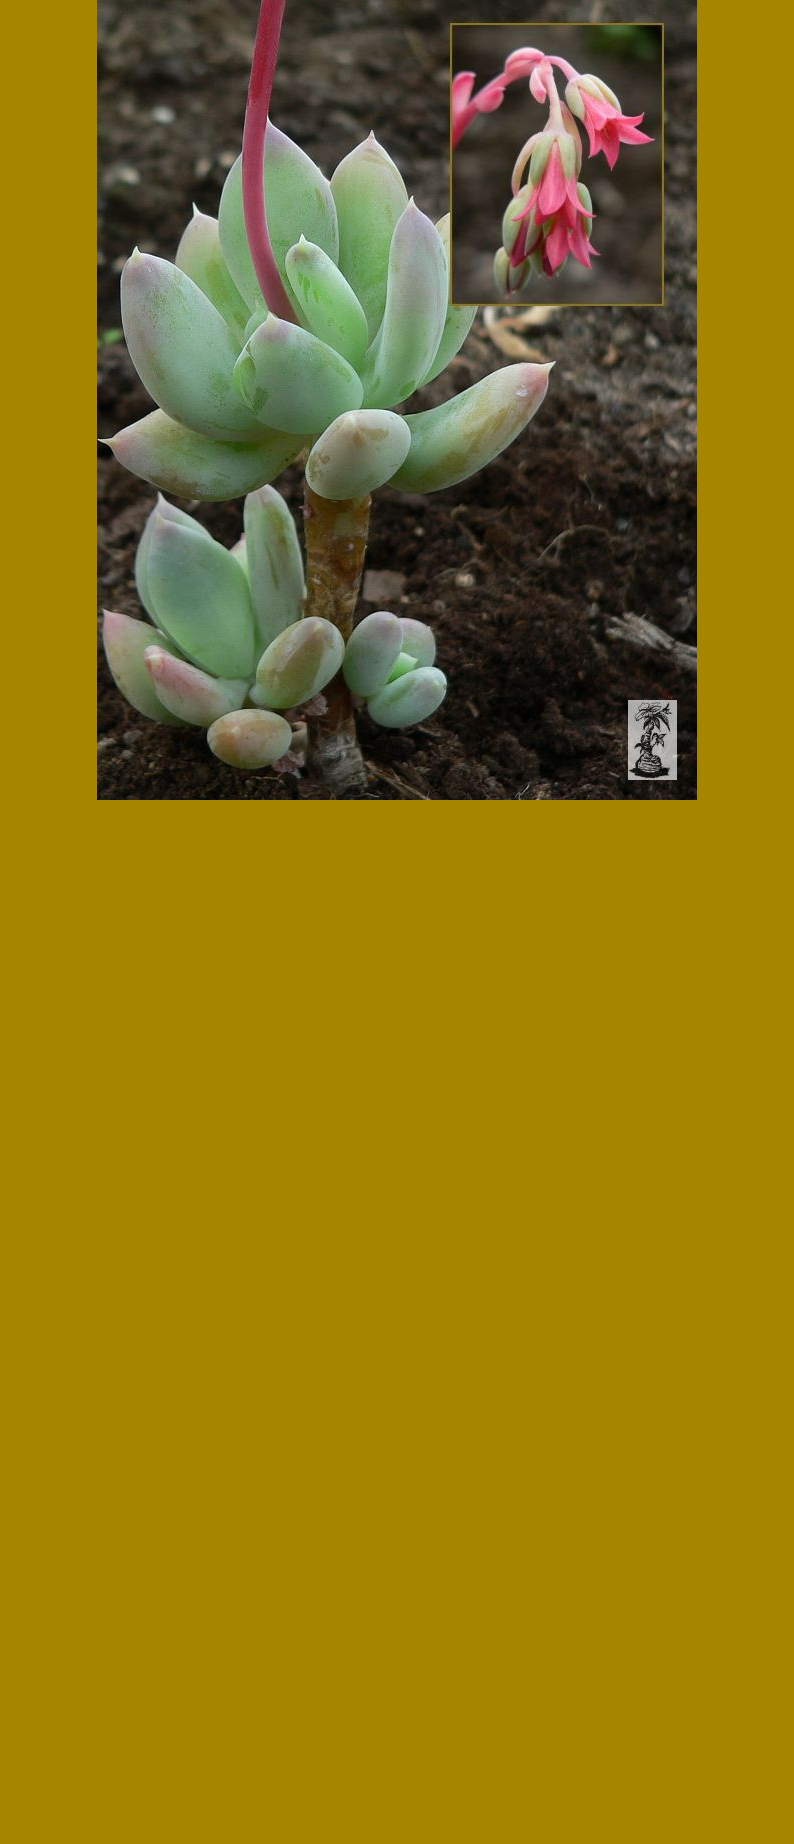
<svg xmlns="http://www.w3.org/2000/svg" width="794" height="1844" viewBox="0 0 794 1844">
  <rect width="100%" height="100%" fill="rgb(166,134,0)"/>
  <image x="97" y="0" width="600" height="800" href="pic1.png"/>
</svg>
